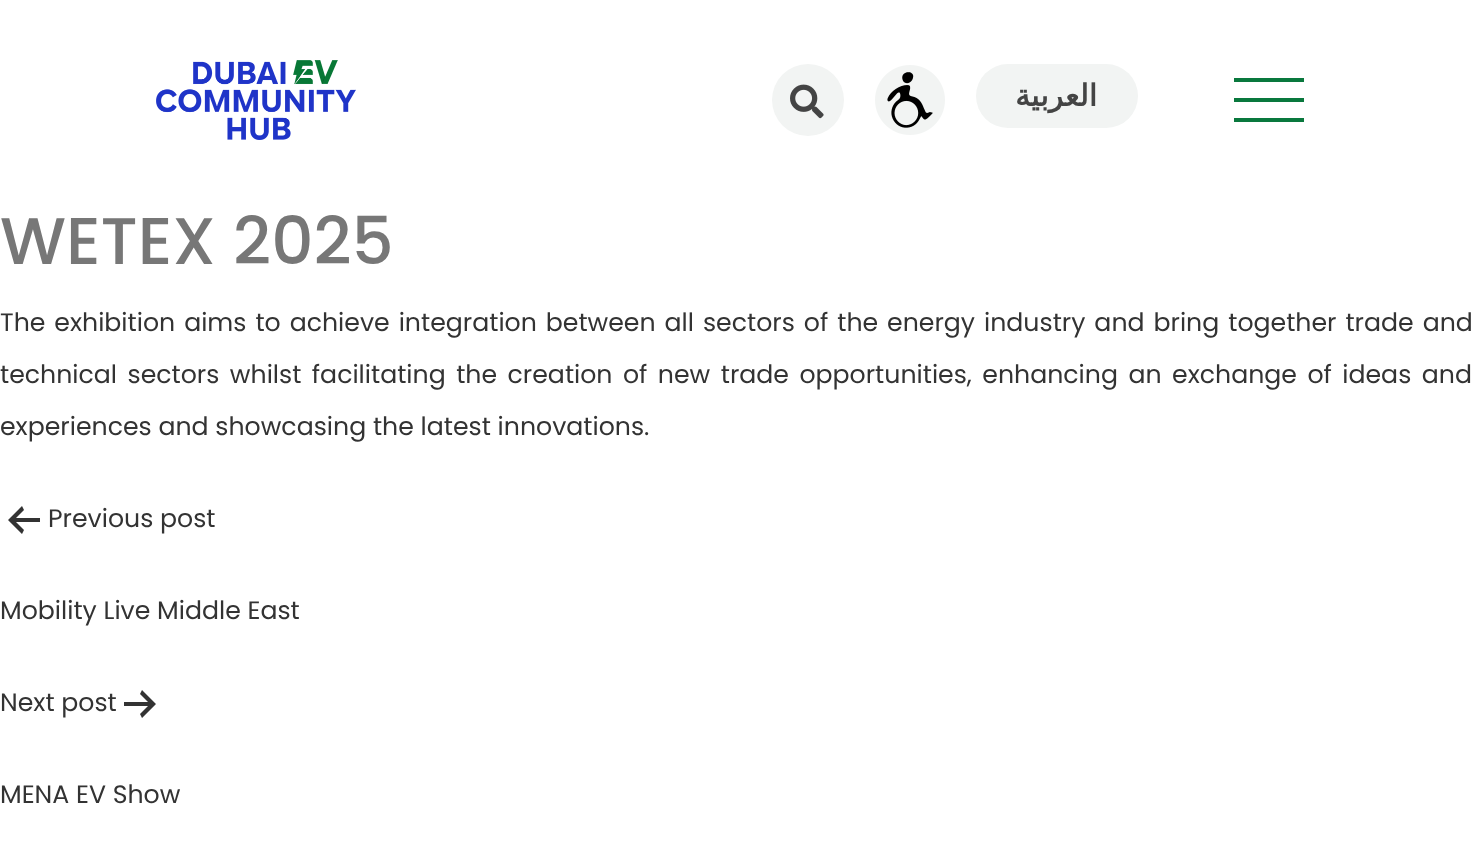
<svg xmlns="http://www.w3.org/2000/svg" width="1472" height="855" viewBox="0 0 1472 855">
  <rect width="100%" height="100%" fill="rgb(255,255,255)"/>
  <image x="156" y="60" width="200" height="80" href="pic1.png"/>
  <circle cx="808" cy="100" r="36" fill="rgb(242,244,243)"/>
  <image x="790" y="84" width="34" height="35" href="pic2.png"/>
  <image x="875" y="65" width="70" height="70" href="pic3.png"/>
  <rect x="976" y="64" width="162" height="64" rx="32" fill="rgb(242,244,243)"/>
  <text x="1097" y="106" font-family="DejaVu Sans" font-size="30" font-weight="bold" direction="rtl" fill="rgb(68,68,68)">العربية</text>
  <rect x="1234" y="78" width="70" height="4" fill="rgb(9,120,61)"/>
  <rect x="1234" y="98" width="70" height="4" fill="rgb(9,120,61)"/>
  <rect x="1234" y="118" width="70" height="4" fill="rgb(9,120,61)"/>
  <text x="0" y="264" font-family="Poppins" font-size="66" font-weight="500" fill="rgb(119,119,119)">WETEX 2025</text>
  <g font-family="Poppins" font-size="25.2" fill="rgb(51,51,51)">
    <text x="0" y="331" word-spacing="2.25">The exhibition aims to achieve integration between all sectors of the energy industry and bring together trade and</text>
    <text x="0" y="383" word-spacing="3.75">technical sectors whilst facilitating the creation of new trade opportunities, enhancing an exchange of ideas and</text>
    <text x="0" y="435">experiences and showcasing the latest innovations.</text>
  </g>
  <path d="M40 522V518H16L24 510L22 506L8 520L22 534L24 530L16 522Z" fill="rgb(51,51,51)" fill-rule="evenodd"/>
  <g font-family="Poppins" font-size="25.2" fill="rgb(51,51,51)">
    <text x="48" y="527">Previous post</text>
    <text x="0" y="619">Mobility Live Middle East</text>
    <text x="0" y="711">Next post</text>
  </g>
  <path d="M124 706V702H148L140 694L142 690L156 704L142 718L140 714L148 706Z" fill="rgb(51,51,51)" fill-rule="evenodd"/>
  <text x="0" y="803" font-family="Poppins" font-size="25.2" fill="rgb(51,51,51)">MENA EV Show</text>
</svg>
